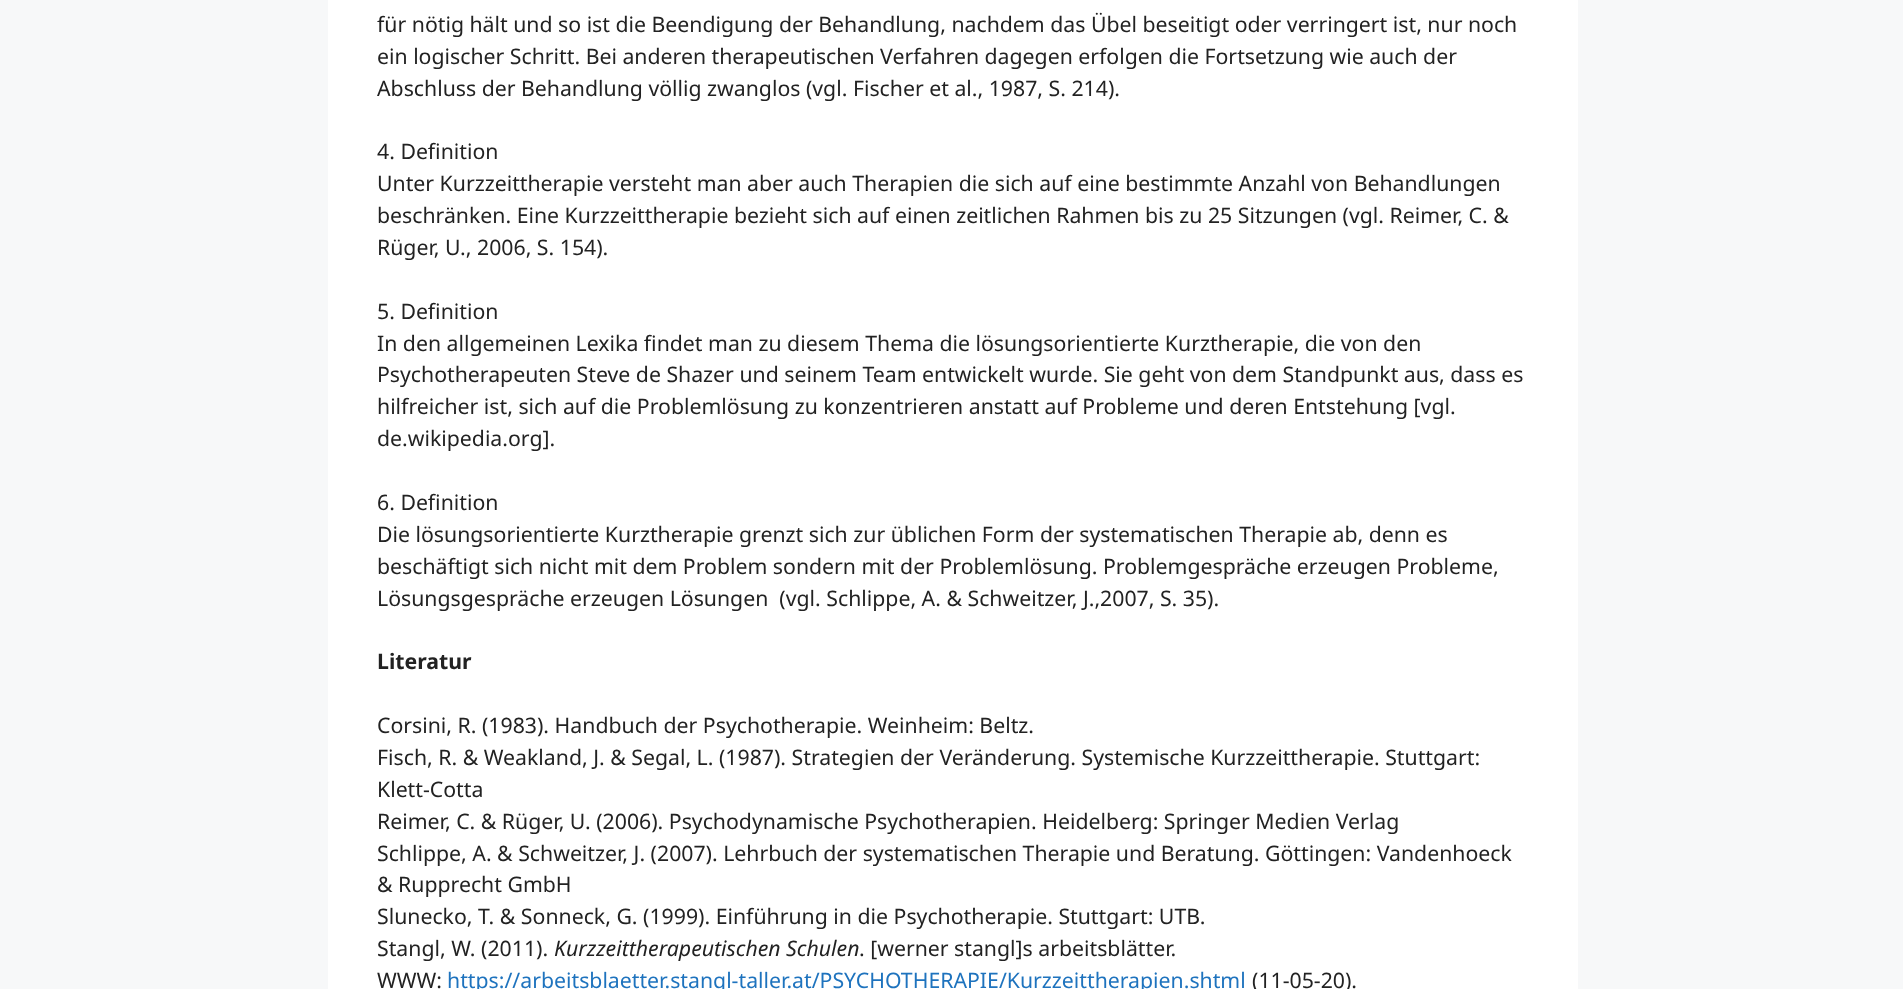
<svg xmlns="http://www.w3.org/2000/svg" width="1903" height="989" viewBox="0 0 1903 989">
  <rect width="100%" height="100%" fill="rgb(247,248,249)"/>
  <rect x="328" y="0" width="1250" height="989" fill="rgb(255,255,255)"/>
  <g font-family="Noto Sans" font-size="21.25" fill="rgb(34,34,34)">
    <text>
      <tspan x="377" y="32">für nötig hält und so ist die Beendigung der Behandlung, nachdem das Übel beseitigt oder verringert ist, nur noch</tspan>
      <tspan x="377" y="64">ein logischer Schritt. Bei anderen therapeutischen Verfahren dagegen erfolgen die Fortsetzung wie auch der</tspan>
      <tspan x="377" y="96">Abschluss der Behandlung völlig zwanglos (vgl. Fischer et al., 1987, S. 214).</tspan>
    </text>
    <text>
      <tspan x="377" y="159">4. Definition</tspan>
      <tspan x="377" y="191">Unter Kurzzeittherapie versteht man aber auch Therapien die sich auf eine bestimmte Anzahl von Behandlungen</tspan>
      <tspan x="377" y="223">beschränken. Eine Kurzzeittherapie bezieht sich auf einen zeitlichen Rahmen bis zu 25 Sitzungen (vgl. Reimer, C. &amp;</tspan>
      <tspan x="377" y="255">Rüger, U., 2006, S. 154).</tspan>
    </text>
    <text>
      <tspan x="377" y="319">5. Definition</tspan>
      <tspan x="377" y="351">In den allgemeinen Lexika findet man zu diesem Thema die lösungsorientierte Kurztherapie, die von den</tspan>
      <tspan x="377" y="382">Psychotherapeuten Steve de Shazer und seinem Team entwickelt wurde. Sie geht von dem Standpunkt aus, dass es</tspan>
      <tspan x="377" y="414">hilfreicher ist, sich auf die Problemlösung zu konzentrieren anstatt auf Probleme und deren Entstehung [vgl.</tspan>
      <tspan x="377" y="446">de.wikipedia.org].</tspan>
    </text>
    <text xml:space="preserve"><tspan x="377" y="510">6. Definition</tspan><tspan x="377" y="542">Die lösungsorientierte Kurztherapie grenzt sich zur üblichen Form der systematischen Therapie ab, denn es</tspan><tspan x="377" y="574">beschäftigt sich nicht mit dem Problem sondern mit der Problemlösung. Problemgespräche erzeugen Probleme,</tspan><tspan x="377" y="606">Lösungsgespräche erzeugen Lösungen  (vgl. Schlippe, A. &amp; Schweitzer, J.,2007, S. 35).</tspan></text>
  </g>
  <text x="377" y="669" font-family="Noto Sans" font-size="21.25" font-weight="bold" fill="rgb(34,34,34)">Literatur</text>
  <g font-family="Noto Sans" font-size="21.25" fill="rgb(34,34,34)">
    <text>
      <tspan x="377" y="733">Corsini, R. (1983). Handbuch der Psychotherapie. Weinheim: Beltz.</tspan>
      <tspan x="377" y="765">Fisch, R. &amp; Weakland, J. &amp; Segal, L. (1987). Strategien der Veränderung. Systemische Kurzzeittherapie. Stuttgart:</tspan>
      <tspan x="377" y="797">Klett-Cotta</tspan>
      <tspan x="377" y="829">Reimer, C. &amp; Rüger, U. (2006). Psychodynamische Psychotherapien. Heidelberg: Springer Medien Verlag</tspan>
      <tspan x="377" y="861">Schlippe, A. &amp; Schweitzer, J. (2007). Lehrbuch der systematischen Therapie und Beratung. Göttingen: Vandenhoeck</tspan>
      <tspan x="377" y="892">&amp; Rupprecht GmbH</tspan>
      <tspan x="377" y="924">Slunecko, T. &amp; Sonneck, G. (1999). Einführung in die Psychotherapie. Stuttgart: UTB.</tspan>
      <tspan x="377" y="956">Stangl, W. (2011).</tspan>
    </text>
  </g>
  <text x="554" y="956" font-family="Noto Sans" font-size="21.25" font-style="italic" fill="rgb(34,34,34)">Kurzzeittherapeutischen Schulen</text>
  <g font-family="Noto Sans" font-size="21.25" fill="rgb(34,34,34)">
    <text x="859" y="956">. [werner stangl]s arbeitsblätter.</text>
    <text x="377" y="988">WWW:</text>
  </g>
  <text x="447" y="988" font-family="Noto Sans" font-size="21.25" fill="rgb(30,115,190)">https://arbeitsblaetter.stangl-taller.at/PSYCHOTHERAPIE/Kurzzeittherapien.shtml</text>
  <text x="1252" y="988" font-family="Noto Sans" font-size="21.25" fill="rgb(34,34,34)">(11-05-20).</text>
</svg>
